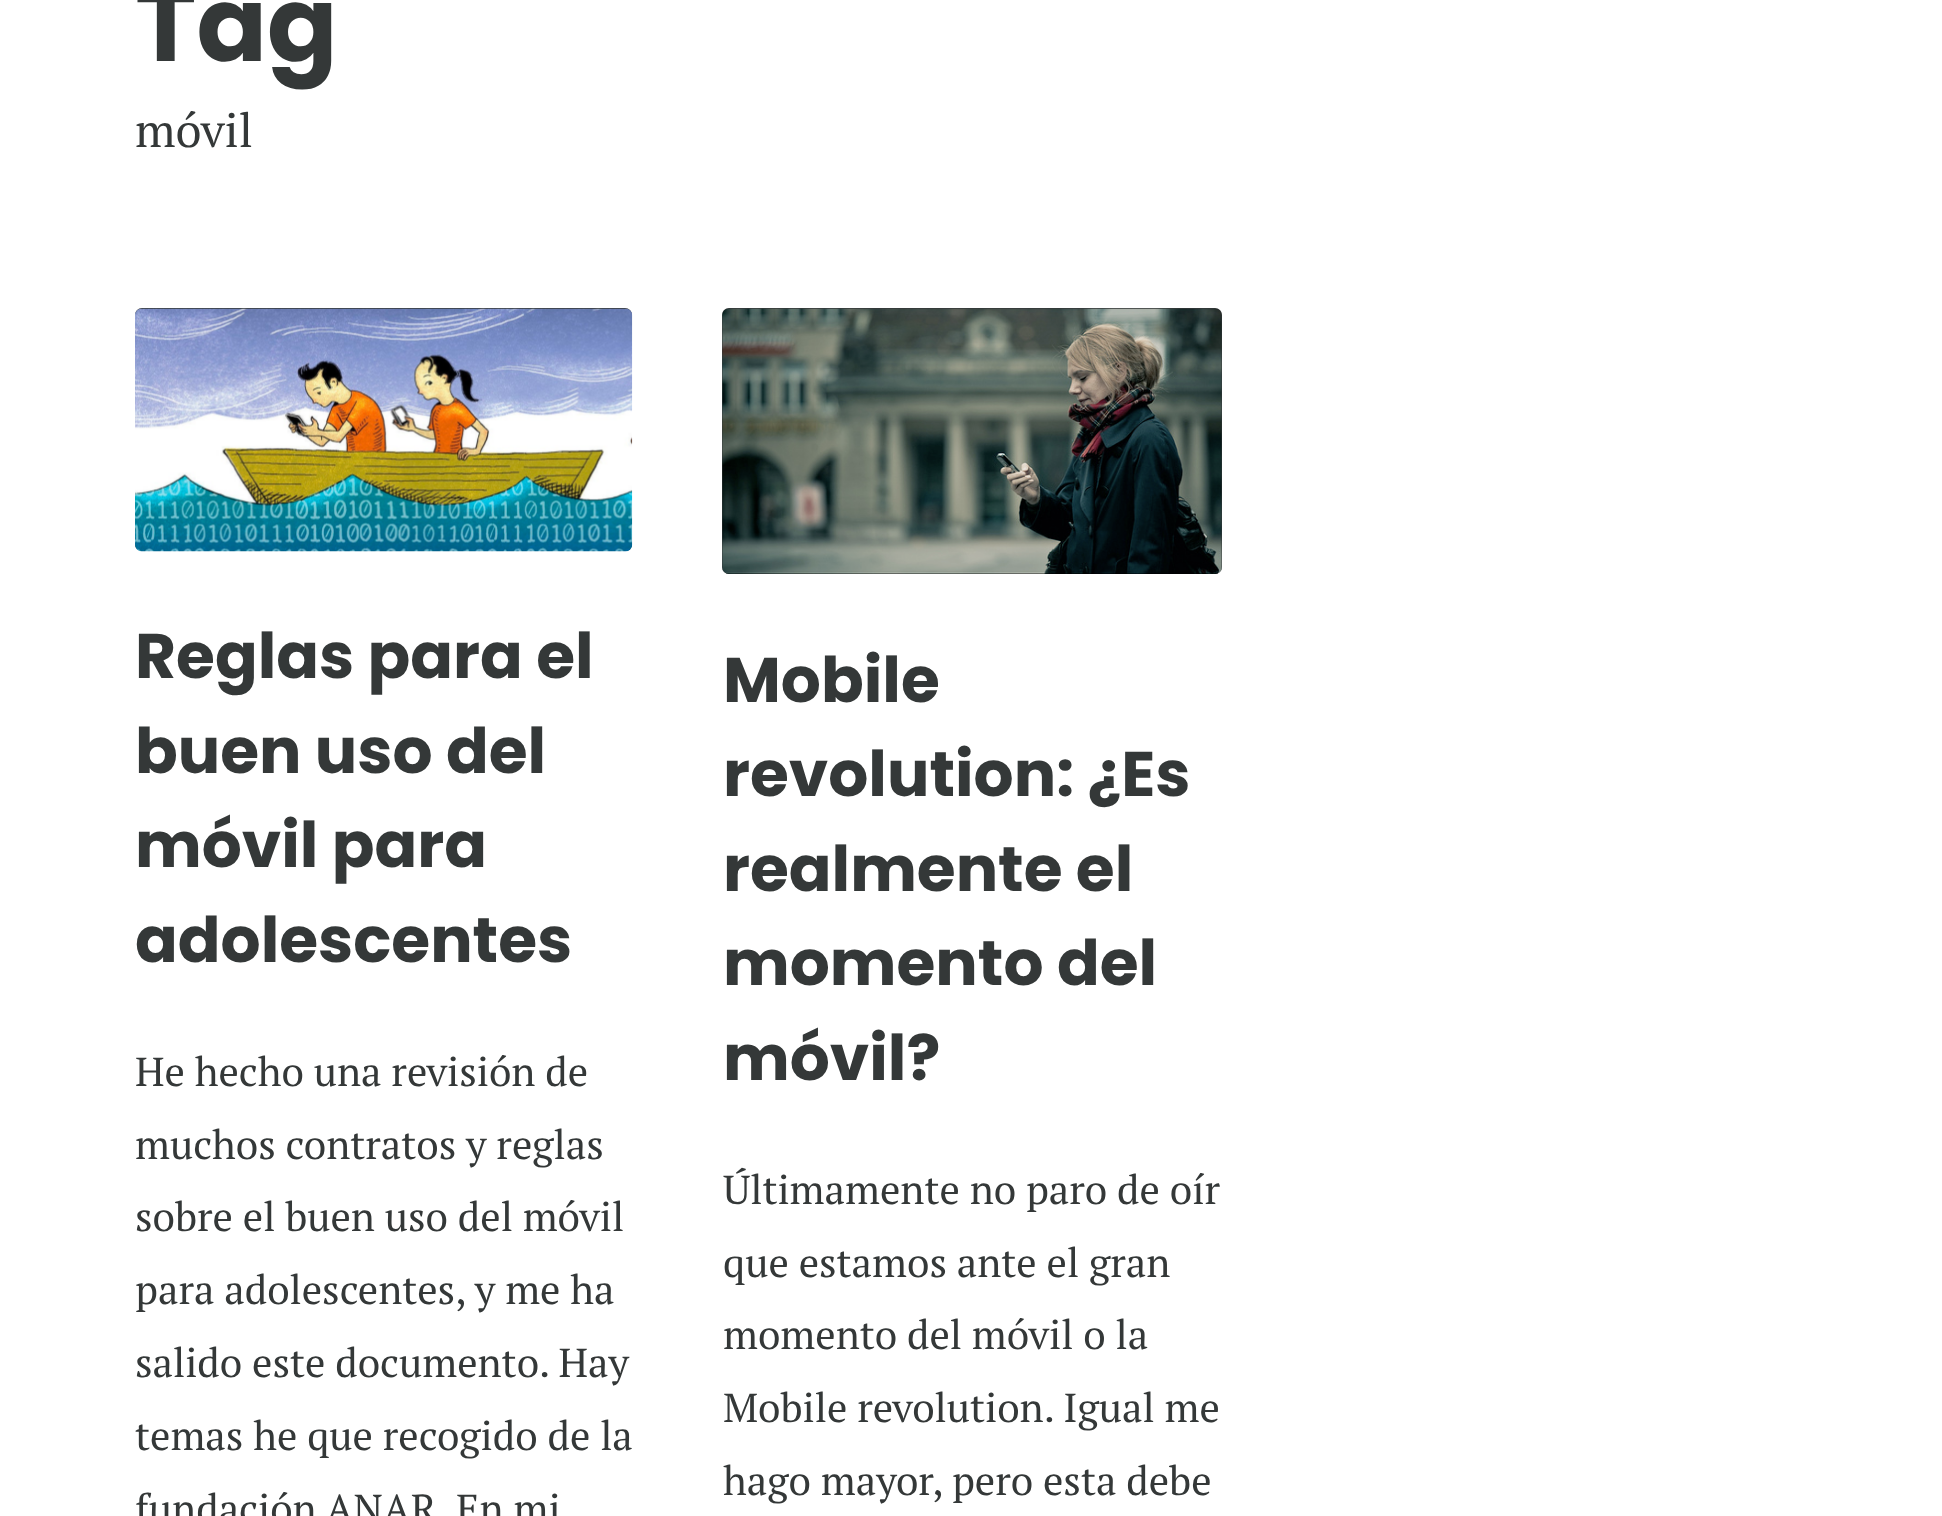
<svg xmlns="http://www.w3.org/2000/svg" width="1942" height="1516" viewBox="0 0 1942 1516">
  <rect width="100%" height="100%" fill="rgb(255,255,255)"/>
  <text x="135" y="61" font-family="Poppins" font-size="104" font-weight="bold" fill="rgb(52,56,56)">Tag</text>
  <text x="135" y="147" font-family="PT Serif" font-size="47" fill="rgb(52,56,56)">móvil</text>
  <rect x="135" y="308" width="497" height="243" rx="7" fill="rgb(52,56,56)"/>
  <image x="135" y="308" width="498" height="244" href="pic1.png"/>
  <g font-family="Poppins" font-size="63" font-weight="bold" fill="rgb(52,56,56)">
    <text>
      <tspan x="135" y="678">Reglas para el</tspan>
      <tspan x="135" y="773">buen uso del</tspan>
      <tspan x="135" y="867">móvil para</tspan>
      <tspan x="135" y="962">adolescentes</tspan>
    </text>
  </g>
  <g font-family="PT Serif" font-size="40.5" fill="rgb(52,56,56)">
    <text>
      <tspan x="135" y="1086">He hecho una revisión de</tspan>
      <tspan x="135" y="1159">muchos contratos y reglas</tspan>
      <tspan x="135" y="1231">sobre el buen uso del móvil</tspan>
      <tspan x="135" y="1304">para adolescentes, y me ha</tspan>
      <tspan x="135" y="1377">salido este documento. Hay</tspan>
      <tspan x="135" y="1450">temas he que recogido de la</tspan>
      <tspan x="135" y="1523">fundación ANAR. En mi</tspan>
    </text>
  </g>
  <rect x="722" y="308" width="500" height="266" rx="7" fill="rgb(52,56,56)"/>
  <image x="722" y="308" width="500" height="266" href="pic2.png"/>
  <g font-family="Poppins" font-size="63" font-weight="bold" fill="rgb(52,56,56)">
    <text>
      <tspan x="723" y="702">Mobile</tspan>
      <tspan x="723" y="796">revolution: ¿Es</tspan>
      <tspan x="723" y="891">realmente el</tspan>
      <tspan x="723" y="985">momento del</tspan>
      <tspan x="723" y="1080">móvil?</tspan>
    </text>
  </g>
  <g font-family="PT Serif" font-size="40.5" fill="rgb(52,56,56)">
    <text>
      <tspan x="723" y="1204">Últimamente no paro de oír</tspan>
      <tspan x="723" y="1277">que estamos ante el gran</tspan>
      <tspan x="723" y="1349">momento del móvil o la</tspan>
      <tspan x="723" y="1422">Mobile revolution. Igual me</tspan>
      <tspan x="723" y="1495">hago mayor, pero esta debe</tspan>
    </text>
  </g>
</svg>
